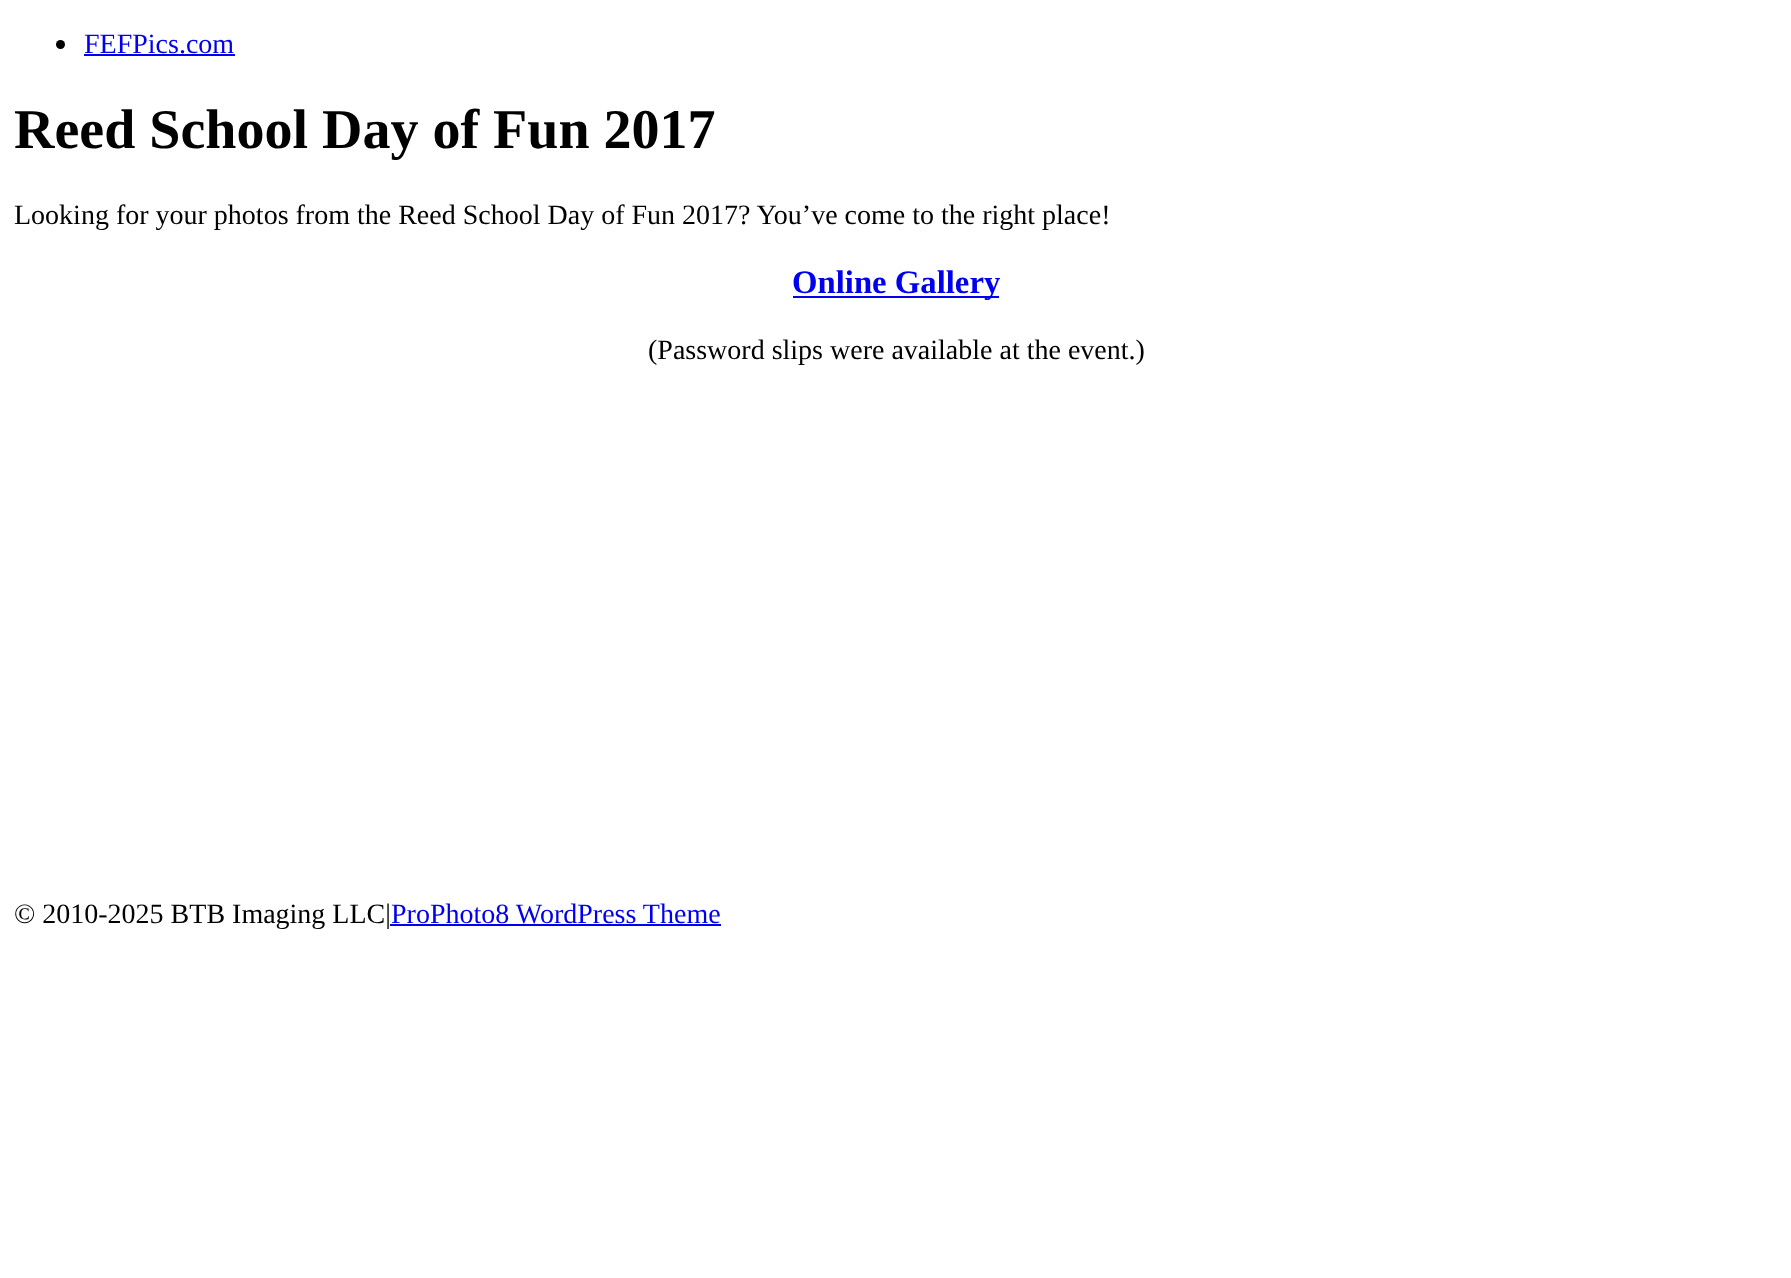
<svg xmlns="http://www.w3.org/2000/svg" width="1791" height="1278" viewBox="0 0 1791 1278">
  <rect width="100%" height="100%" fill="rgb(255,255,255)"/>
  <circle cx="60.5" cy="44.5" r="4.5" fill="rgb(0,0,0)"/>
  <text x="84" y="53" font-family="Liberation Serif" font-size="28" fill="rgb(0,0,238)">FEFPics.com</text>
  <rect x="84" y="54" width="151" height="2" fill="rgb(0,0,238)"/>
  <text x="14" y="148" font-family="Liberation Serif" font-size="56" font-weight="bold" fill="rgb(0,0,0)">Reed School Day of Fun 2017</text>
  <text x="14" y="224" font-family="Liberation Serif" font-size="28" fill="rgb(0,0,0)">Looking for your photos from the Reed School Day of Fun 2017? You’ve come to the right place!</text>
  <rect x="793" y="296" width="206" height="2" fill="rgb(0,0,238)"/>
  <text x="792" y="293" font-family="Liberation Serif" font-size="32.75" font-weight="bold" fill="rgb(0,0,238)">Online Gallery</text>
  <g font-family="Liberation Serif" font-size="28" fill="rgb(0,0,0)">
    <text x="648" y="359">(Password slips were available at the event.)</text>
    <text x="14" y="923">© 2010-2025 BTB Imaging LLC|</text>
  </g>
  <text x="391" y="923" font-family="Liberation Serif" font-size="28" fill="rgb(0,0,238)">ProPhoto8 WordPress Theme</text>
  <rect x="390" y="924" width="331" height="2" fill="rgb(0,0,238)"/>
</svg>
